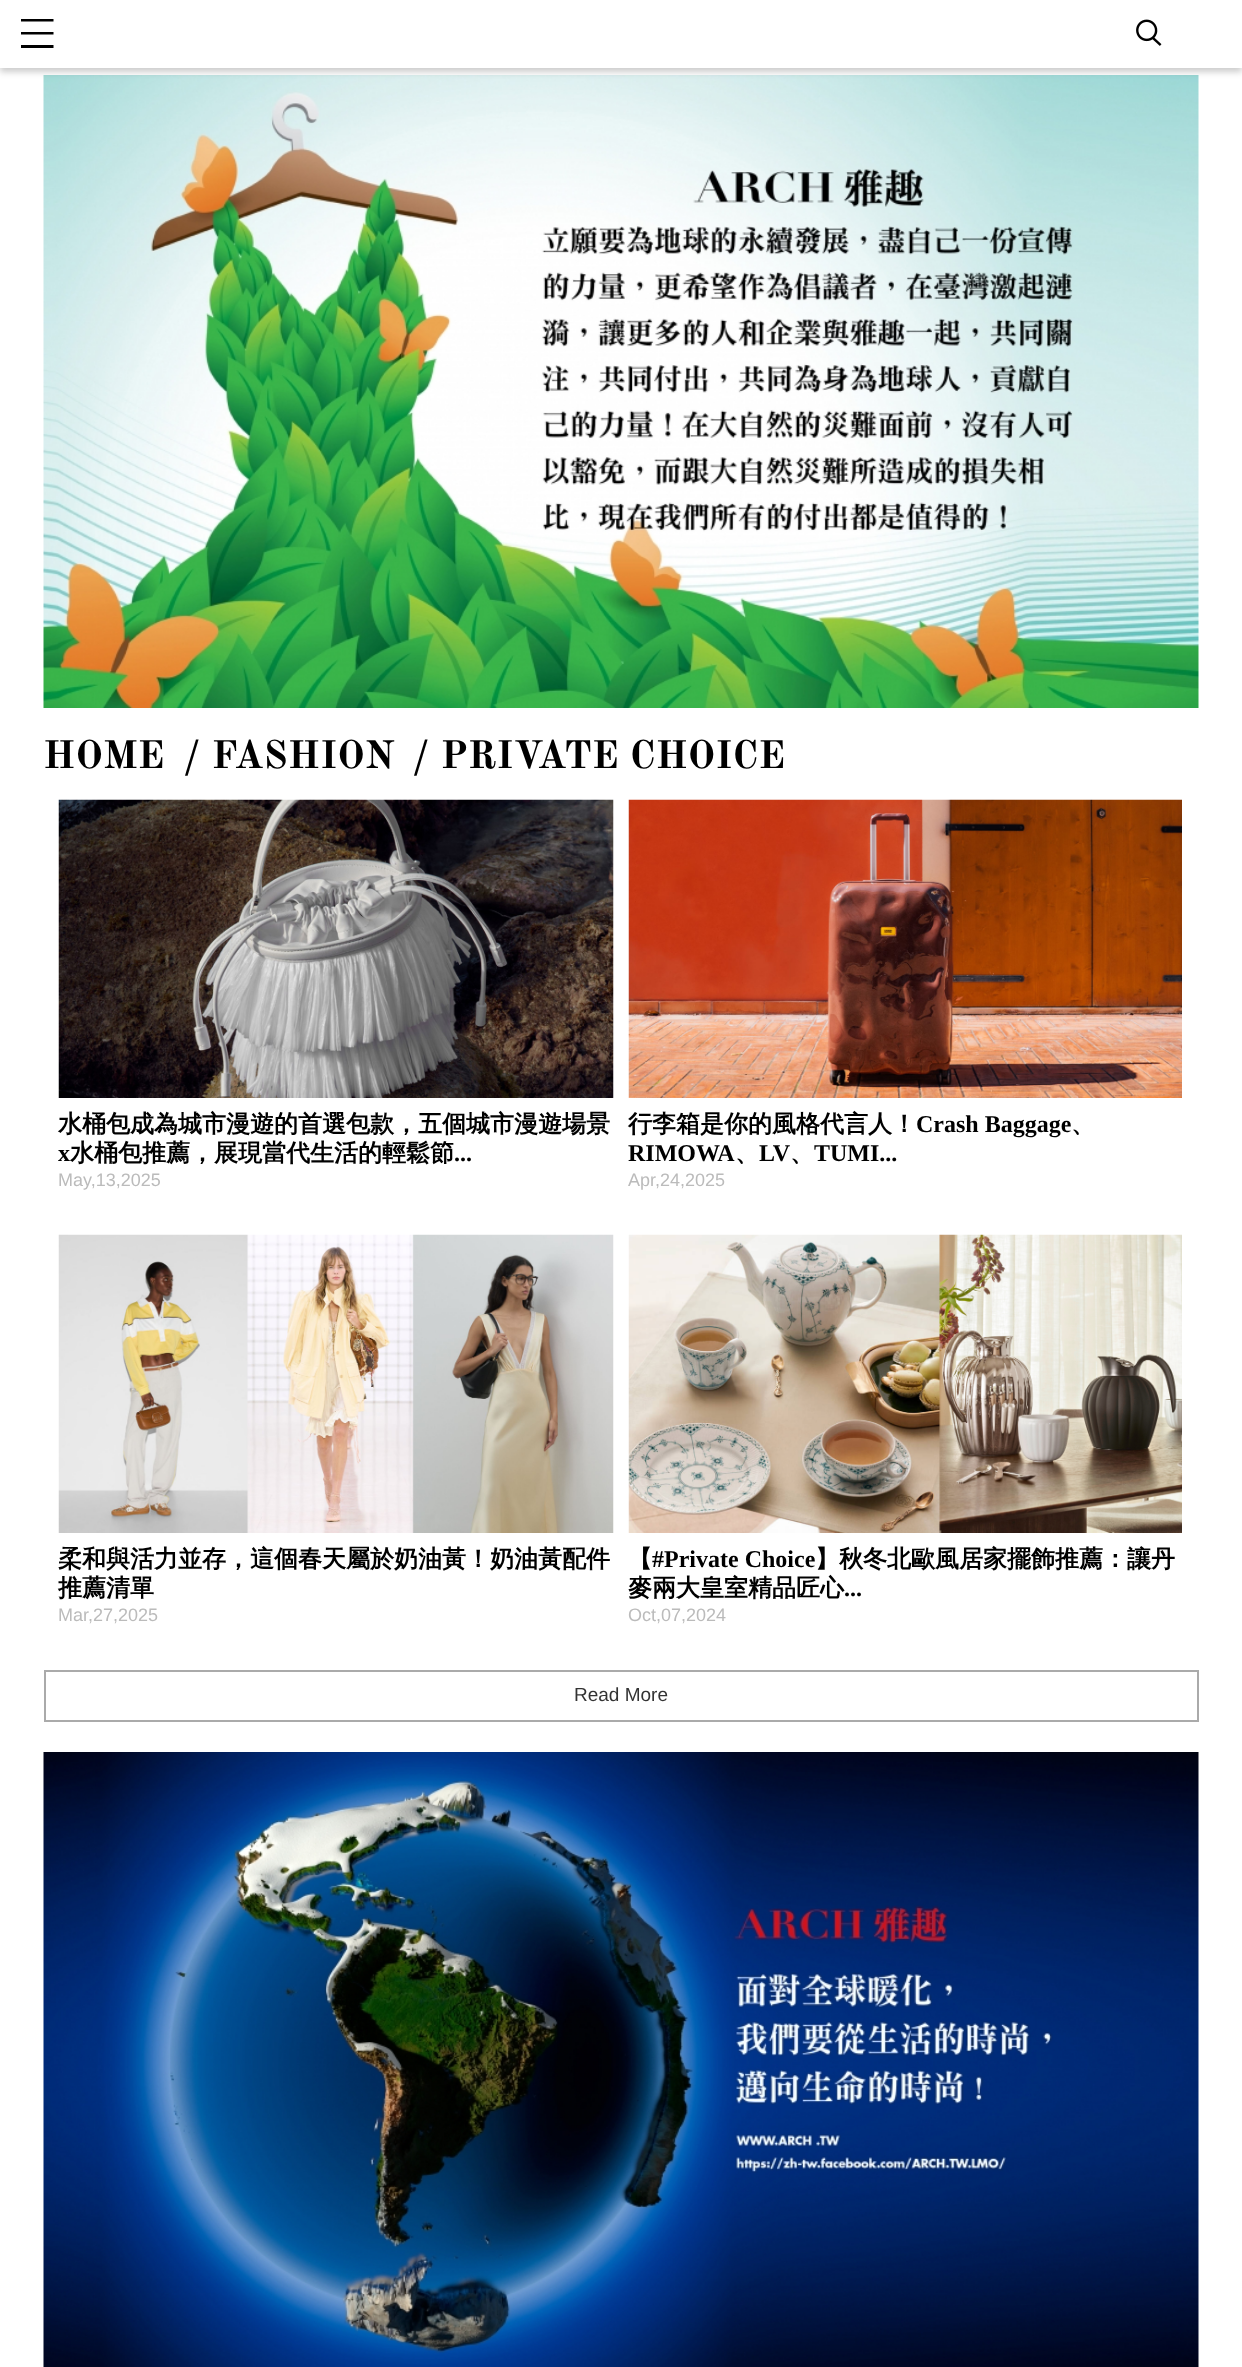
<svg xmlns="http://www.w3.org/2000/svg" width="1242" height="2367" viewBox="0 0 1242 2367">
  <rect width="100%" height="100%" fill="rgb(255,255,255)"/>
  <image x="43" y="75" width="1156" height="633" href="pic2.png"/>
  <rect x="0" y="5" width="1242" height="67" fill="rgba(0,0,0,0.2)" filter="blur(3px)"/>
  <rect x="0" y="0" width="1242" height="68" fill="rgb(255,255,255)"/>
  <path d="M53.5 21.5H21V19H53.5ZM53.5 32H21V34.5H53.5ZM53.5 45H21V48H53.5Z" fill="rgb(0,0,0)"/>
  <image x="1136" y="19" width="26" height="27" href="pic1.png"/>
  <g font-family="Old Standard TT" font-size="39" font-weight="bold" fill="rgb(0,0,0)">
    <text x="43" y="768">HOME</text>
    <text x="183" y="768">/ FASHION</text>
    <text x="412" y="768">/ PRIVATE CHOICE</text>
  </g>
  <image x="58" y="799" width="556" height="299" href="pic3.png"/>
  <text x="58" y="1132" font-family="WenQuanYi Zen Hei" font-size="24" font-weight="bold" fill="rgb(0,0,0)">水桶包成為城市漫遊的首選包款，五個城市漫遊場景</text>
  <text x="58" y="1161" font-family="Liberation Serif" font-size="24" font-weight="bold" fill="rgb(0,0,0)">x</text>
  <text x="70" y="1161" font-family="WenQuanYi Zen Hei" font-size="24" font-weight="bold" fill="rgb(0,0,0)">水桶包推薦，展現當代生活的輕鬆節</text>
  <text x="454" y="1161" font-family="Liberation Serif" font-size="24" font-weight="bold" fill="rgb(0,0,0)">...</text>
  <text x="58" y="1186" font-family="Liberation Sans" font-size="18" fill="rgb(187,187,187)">May,13,2025</text>
  <image x="628" y="799" width="554" height="299" href="pic4.png"/>
  <text x="628" y="1132" font-family="WenQuanYi Zen Hei" font-size="24" font-weight="bold" fill="rgb(0,0,0)">行李箱是你的風格代言人！</text>
  <text x="916" y="1132" font-family="Liberation Serif" font-size="24" font-weight="bold" fill="rgb(0,0,0)">Crash Baggage</text>
  <text x="1071" y="1132" font-family="WenQuanYi Zen Hei" font-size="24" font-weight="bold" fill="rgb(0,0,0)">、</text>
  <text x="628" y="1161" font-family="Liberation Serif" font-size="24" font-weight="bold" fill="rgb(0,0,0)">RIMOWA</text>
  <text x="735" y="1161" font-family="WenQuanYi Zen Hei" font-size="24" font-weight="bold" fill="rgb(0,0,0)">、</text>
  <text x="759" y="1161" font-family="Liberation Serif" font-size="24" font-weight="bold" fill="rgb(0,0,0)">LV</text>
  <text x="790" y="1161" font-family="WenQuanYi Zen Hei" font-size="24" font-weight="bold" fill="rgb(0,0,0)">、</text>
  <text x="814" y="1161" font-family="Liberation Serif" font-size="24" font-weight="bold" fill="rgb(0,0,0)">TUMI...</text>
  <text x="628" y="1186" font-family="Liberation Sans" font-size="18" fill="rgb(187,187,187)">Apr,24,2025</text>
  <image x="58" y="1234" width="556" height="299" href="pic5.png"/>
  <g font-family="WenQuanYi Zen Hei" font-size="24" font-weight="bold" fill="rgb(0,0,0)">
    <text>
      <tspan x="58" y="1567">柔和與活力並存，這個春天屬於奶油黃！奶油黃配件</tspan>
      <tspan x="58" y="1596">推薦清單</tspan>
    </text>
  </g>
  <text x="58" y="1621" font-family="Liberation Sans" font-size="18" fill="rgb(187,187,187)">Mar,27,2025</text>
  <image x="628" y="1234" width="554" height="299" href="pic6.png"/>
  <text x="628" y="1567" font-family="WenQuanYi Zen Hei" font-size="24" font-weight="bold" fill="rgb(0,0,0)">【</text>
  <text x="652" y="1567" font-family="Liberation Serif" font-size="24" font-weight="bold" fill="rgb(0,0,0)">#Private Choice</text>
  <g font-family="WenQuanYi Zen Hei" font-size="24" font-weight="bold" fill="rgb(0,0,0)">
    <text x="815" y="1567">】秋冬北歐風居家擺飾推薦：讓丹</text>
    <text x="628" y="1596">麥兩大皇室精品匠心</text>
  </g>
  <text x="844" y="1596" font-family="Liberation Serif" font-size="24" font-weight="bold" fill="rgb(0,0,0)">...</text>
  <text x="628" y="1621" font-family="Liberation Sans" font-size="18" fill="rgb(187,187,187)">Oct,07,2024</text>
  <rect x="45" y="1671" width="1153" height="50" fill="none" stroke="rgb(170,170,170)" stroke-width="2"/>
  <text x="574" y="1701" font-family="Liberation Sans" font-size="19" fill="rgb(51,51,51)">Read More</text>
  <image x="43" y="1752" width="1156" height="615" href="pic7.png"/>
</svg>
